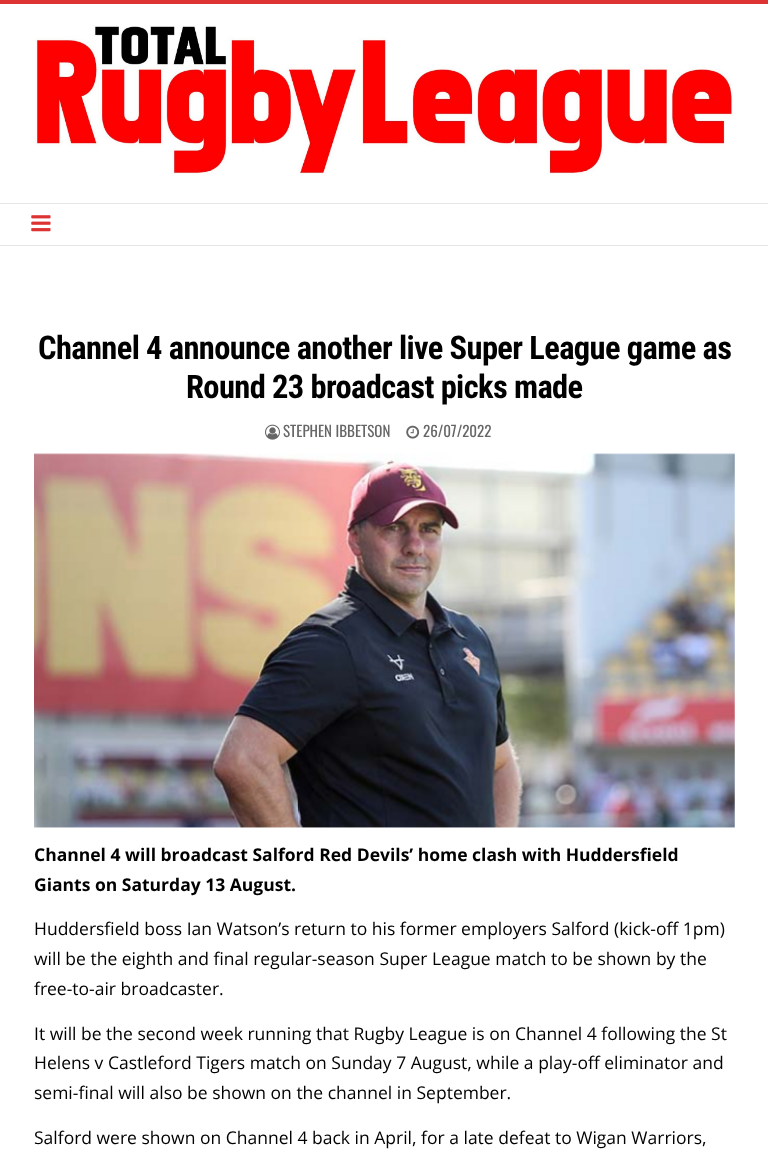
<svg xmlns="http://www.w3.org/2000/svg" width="768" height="1152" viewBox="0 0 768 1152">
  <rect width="100%" height="100%" fill="rgb(255,255,255)"/>
  <rect x="0" y="0" width="768" height="4" fill="rgb(221,51,51)"/>
  <image x="35" y="25" width="701" height="151" href="pic1.png"/>
  <rect x="0" y="203" width="768" height="1" fill="rgb(229,229,229)"/>
  <rect x="0" y="245" width="768" height="1" fill="rgb(229,229,229)"/>
  <image x="31" y="215" width="20" height="17" href="pic2.png"/>
  <g font-family="Roboto Condensed" font-size="32.5" font-weight="bold" letter-spacing="-0.62" fill="rgb(0,0,0)">
    <text x="38" y="359">Channel 4 announce another live Super League game as</text>
    <text x="186" y="398">Round 23 broadcast picks made</text>
  </g>
  <image x="265" y="424" width="15" height="16" href="pic3.png"/>
  <text x="283" y="437" font-family="Oswald" font-size="15" fill="rgb(102,102,102)">STEPHEN IBBETSON</text>
  <image x="406" y="425" width="14" height="14" href="pic4.png"/>
  <text x="423" y="437" font-family="Oswald" font-size="15" fill="rgb(102,102,102)">26/07/2022</text>
  <image x="34" y="453" width="701" height="375" href="pic5.png"/>
  <g font-family="Open Sans" font-size="17.5" font-weight="bold" fill="rgb(0,0,0)">
    <text>
      <tspan x="34" y="861">Channel 4 will broadcast Salford Red Devils’ home clash with Huddersfield</tspan>
      <tspan x="34" y="891">Giants on Saturday 13 August.</tspan>
    </text>
  </g>
  <g font-family="Open Sans" font-size="17.5" fill="rgb(0,0,0)">
    <text>
      <tspan x="34" y="935">Huddersfield boss Ian Watson’s return to his former employers Salford (kick-off 1pm)</tspan>
      <tspan x="34" y="965">will be the eighth and final regular-season Super League match to be shown by the</tspan>
      <tspan x="34" y="995">free-to-air broadcaster.</tspan>
    </text>
    <text>
      <tspan x="34" y="1040">It will be the second week running that Rugby League is on Channel 4 following the St</tspan>
      <tspan x="34" y="1069">Helens v Castleford Tigers match on Sunday 7 August, while a play-off eliminator and</tspan>
      <tspan x="34" y="1099">semi-final will also be shown on the channel in September.</tspan>
    </text>
    <text x="34" y="1144">Salford were shown on Channel 4 back in April, for a late defeat to Wigan Warriors,</text>
  </g>
</svg>
